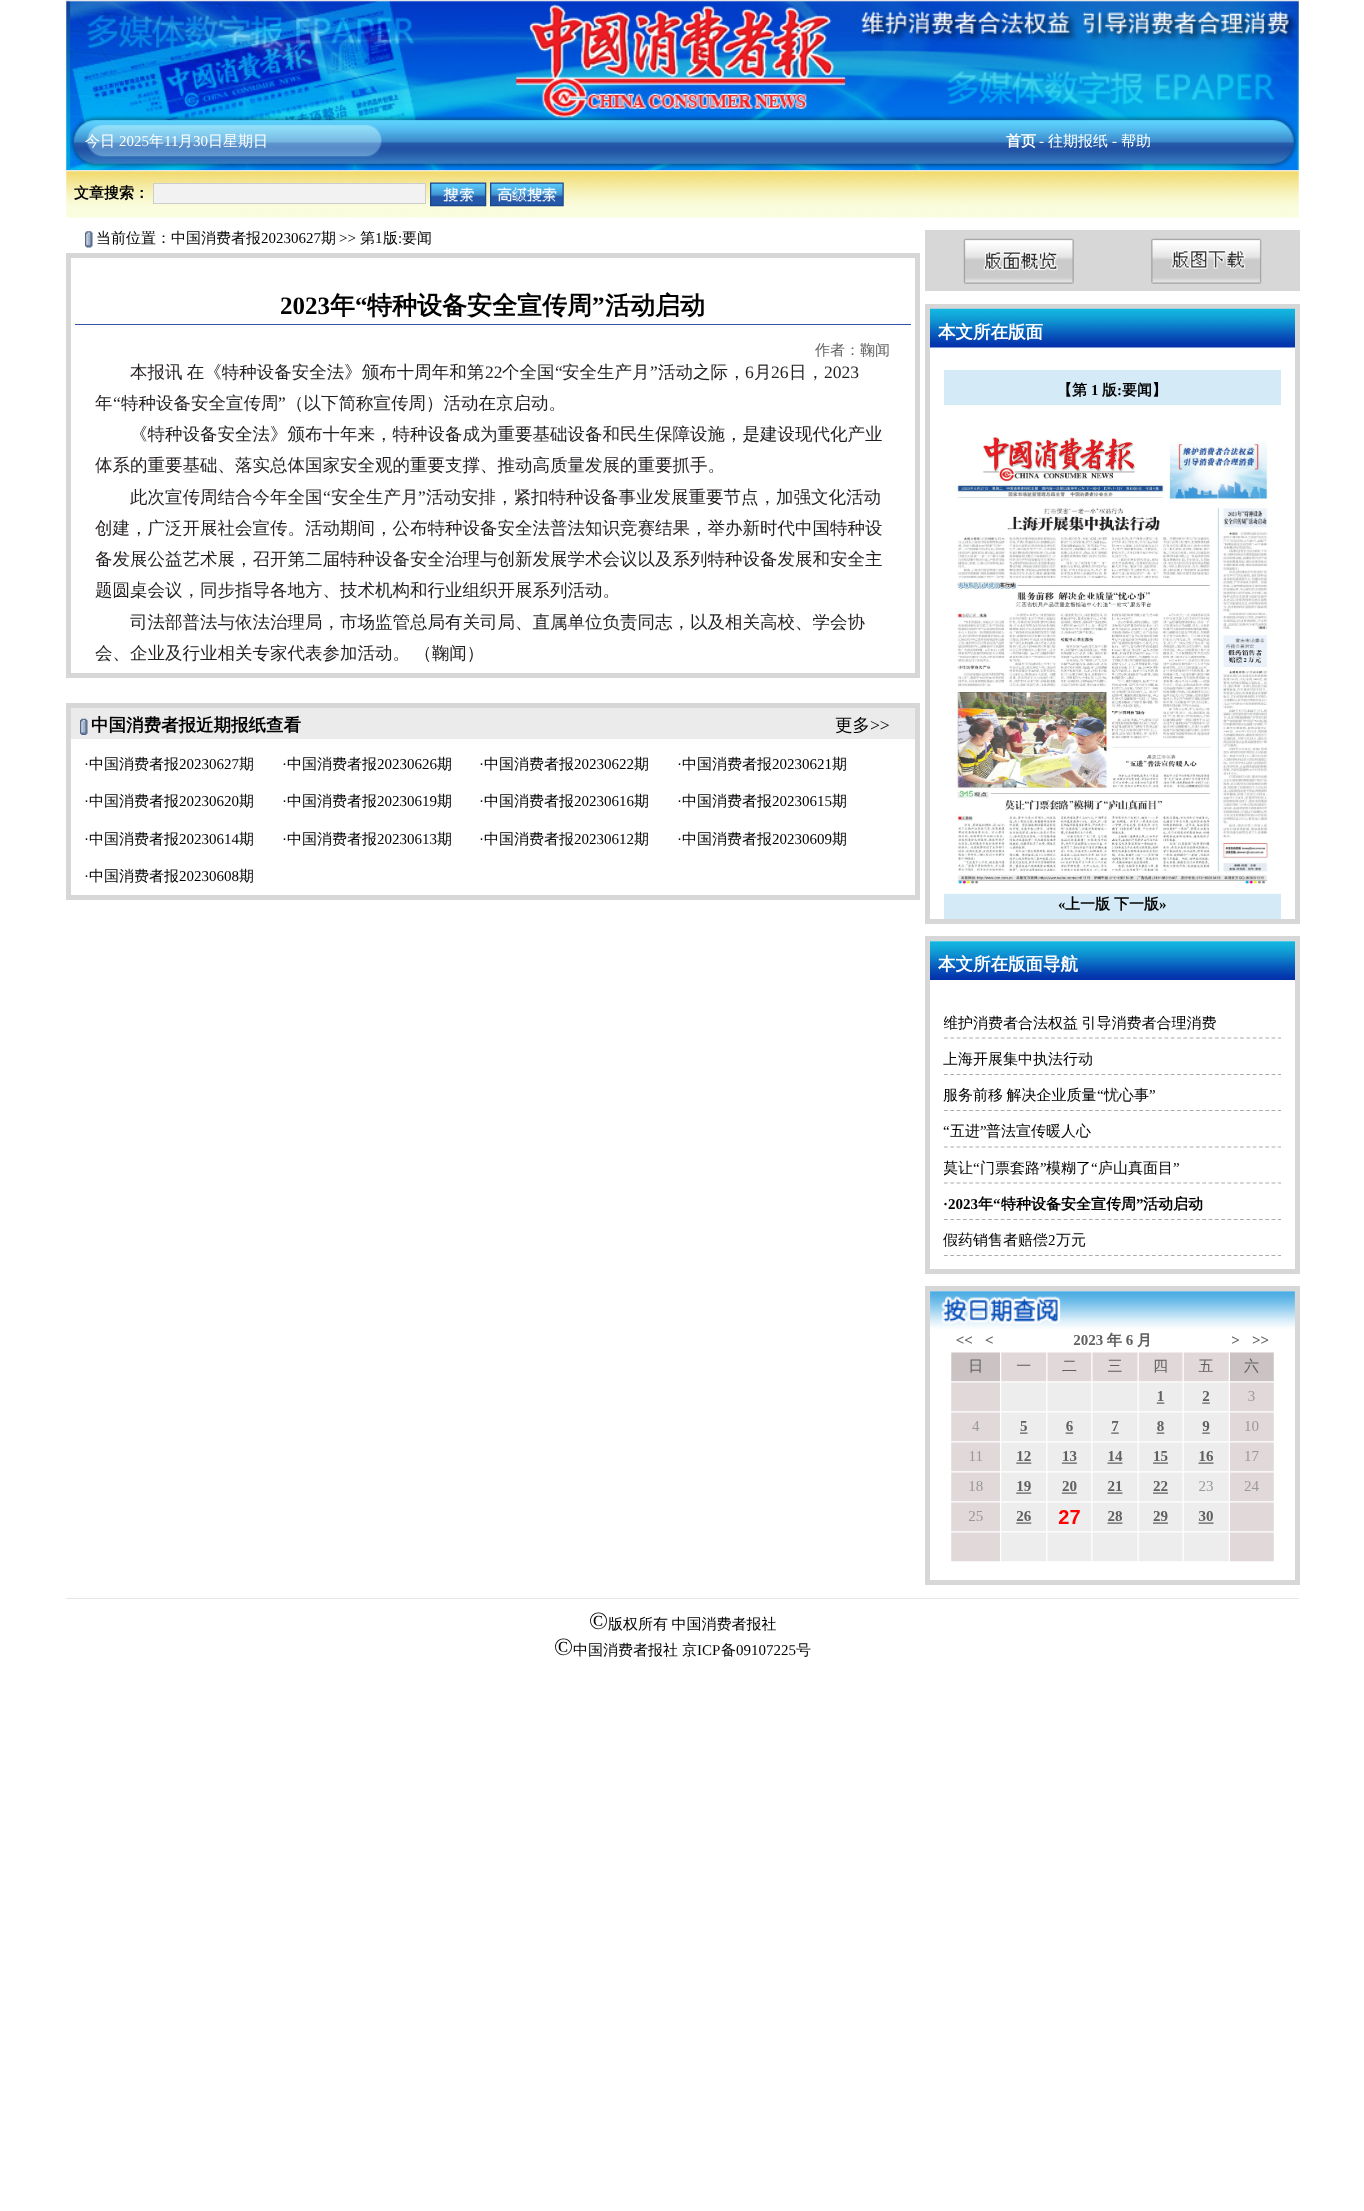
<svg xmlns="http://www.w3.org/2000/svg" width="1364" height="2211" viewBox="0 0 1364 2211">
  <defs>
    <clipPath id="clip1"><rect x="944" y="1003" width="337" height="35"/></clipPath>
    <clipPath id="clip2"><rect x="944" y="1148" width="337" height="35"/></clipPath>
  </defs>
  <rect width="100%" height="100%" fill="rgb(255,255,255)"/>
  <rect x="66" y="0" width="1233" height="1" fill="rgb(231,231,231)"/>
  <image x="66" y="1" width="1233" height="169" href="pic1.png"/>
  <text x="85" y="146" font-family="WenQuanYi Zen Hei" font-size="15" font-weight="500" fill="rgb(255,255,255)">今日</text>
  <text x="119" y="146" font-family="Liberation Serif" font-size="15" fill="rgb(255,255,255)">2025</text>
  <text x="149" y="146" font-family="WenQuanYi Zen Hei" font-size="15" font-weight="500" fill="rgb(255,255,255)">年</text>
  <text x="164" y="146" font-family="Liberation Serif" font-size="15" fill="rgb(255,255,255)">11</text>
  <text x="178" y="146" font-family="WenQuanYi Zen Hei" font-size="15" font-weight="500" fill="rgb(255,255,255)">月</text>
  <text x="193" y="146" font-family="Liberation Serif" font-size="15" fill="rgb(255,255,255)">30</text>
  <text x="208" y="146" font-family="WenQuanYi Zen Hei" font-size="15" font-weight="500" fill="rgb(255,255,255)">日星期日</text>
  <text x="1006" y="146" font-family="WenQuanYi Zen Hei" font-size="15" font-weight="bold" fill="rgb(255,255,255)">首页</text>
  <text x="1039" y="146" font-family="Liberation Serif" font-size="15" fill="rgb(255,255,255)">-</text>
  <text x="1048" y="146" font-family="WenQuanYi Zen Hei" font-size="15" font-weight="500" fill="rgb(255,255,255)">往期报纸</text>
  <text x="1112" y="146" font-family="Liberation Serif" font-size="15" fill="rgb(255,255,255)">-</text>
  <text x="1121" y="146" font-family="WenQuanYi Zen Hei" font-size="15" font-weight="500" fill="rgb(255,255,255)">帮助</text>
  <rect x="66" y="170" width="1233" height="1" fill="rgb(231,231,231)"/>
  <image x="66" y="171" width="1233" height="47" href="pic2.png"/>
  <text x="74" y="198" font-family="WenQuanYi Zen Hei" font-size="15" font-weight="bold" fill="rgb(0,0,0)">文章搜索：</text>
  <rect x="153.5" y="183.5" width="272" height="20" fill="rgb(242,242,242)" stroke="rgb(205,205,205)"/>
  <image x="430" y="182" width="57" height="25" href="pic3.png"/>
  <image x="490" y="182" width="74" height="25" href="pic4.png"/>
  <image x="85" y="231" width="8" height="17" href="pic5.png"/>
  <text x="96" y="243" font-family="WenQuanYi Zen Hei" font-size="15" font-weight="500" fill="rgb(0,0,0)">当前位置：中国消费者报</text>
  <text x="261" y="243" font-family="Liberation Serif" font-size="15" fill="rgb(0,0,0)">20230627</text>
  <text x="321" y="243" font-family="WenQuanYi Zen Hei" font-size="15" font-weight="500" fill="rgb(0,0,0)">期</text>
  <text x="339" y="243" font-family="Liberation Serif" font-size="15" fill="rgb(0,0,0)">&gt;&gt;</text>
  <text x="360" y="243" font-family="WenQuanYi Zen Hei" font-size="15" font-weight="500" fill="rgb(0,0,0)">第</text>
  <text x="375" y="243" font-family="Liberation Serif" font-size="15" fill="rgb(0,0,0)">1</text>
  <text x="383" y="243" font-family="WenQuanYi Zen Hei" font-size="15" font-weight="500" fill="rgb(0,0,0)">版</text>
  <text x="398" y="243" font-family="Liberation Serif" font-size="15" fill="rgb(0,0,0)">:</text>
  <text x="402" y="243" font-family="WenQuanYi Zen Hei" font-size="15" font-weight="500" fill="rgb(0,0,0)">要闻</text>
  <rect x="68.5" y="255.5" width="849" height="420" fill="none" stroke="rgb(215,215,215)" stroke-width="5"/>
  <text x="280" y="314" font-family="Liberation Serif" font-size="25" font-weight="bold" fill="rgb(0,0,0)">2023</text>
  <text x="330" y="314" font-family="WenQuanYi Zen Hei" font-size="25" font-weight="bold" fill="rgb(0,0,0)">年</text>
  <text x="355" y="314" font-family="Liberation Serif" font-size="25" font-weight="bold" fill="rgb(0,0,0)">“</text>
  <text x="367" y="314" font-family="WenQuanYi Zen Hei" font-size="25" font-weight="bold" fill="rgb(0,0,0)">特种设备安全宣传周</text>
  <text x="592" y="314" font-family="Liberation Serif" font-size="25" font-weight="bold" fill="rgb(0,0,0)">”</text>
  <text x="605" y="314" font-family="WenQuanYi Zen Hei" font-size="25" font-weight="bold" fill="rgb(0,0,0)">活动启动</text>
  <rect x="75" y="324" width="836" height="1" fill="rgb(54,81,170)"/>
  <text x="815" y="355" font-family="WenQuanYi Zen Hei" font-size="15" font-weight="500" fill="rgb(102,102,102)">作者：鞠闻</text>
  <text x="130" y="378" word-spacing="-1" font-family="WenQuanYi Zen Hei" font-size="17.5" font-weight="500" fill="rgb(35,31,31)">本报讯 在《特种设备安全法》颁布十周年和第</text>
  <text x="485" y="378" font-family="Liberation Serif" font-size="17.5" fill="rgb(35,31,31)">22</text>
  <text x="502" y="378" font-family="WenQuanYi Zen Hei" font-size="17.5" font-weight="500" fill="rgb(35,31,31)">个全国</text>
  <text x="555" y="378" font-family="Liberation Serif" font-size="17.5" fill="rgb(35,31,31)">“</text>
  <text x="562" y="378" font-family="WenQuanYi Zen Hei" font-size="17.5" font-weight="500" fill="rgb(35,31,31)">安全生产月</text>
  <text x="650" y="378" font-family="Liberation Serif" font-size="17.5" fill="rgb(35,31,31)">”</text>
  <text x="658" y="378" font-family="WenQuanYi Zen Hei" font-size="17.5" font-weight="500" fill="rgb(35,31,31)">活动之际，</text>
  <text x="745" y="378" font-family="Liberation Serif" font-size="17.5" fill="rgb(35,31,31)">6</text>
  <text x="754" y="378" font-family="WenQuanYi Zen Hei" font-size="17.5" font-weight="500" fill="rgb(35,31,31)">月</text>
  <text x="771" y="378" font-family="Liberation Serif" font-size="17.5" fill="rgb(35,31,31)">26</text>
  <text x="789" y="378" font-family="WenQuanYi Zen Hei" font-size="17.5" font-weight="500" fill="rgb(35,31,31)">日，</text>
  <text x="824" y="378" font-family="Liberation Serif" font-size="17.5" fill="rgb(35,31,31)">2023</text>
  <text x="95" y="409" font-family="WenQuanYi Zen Hei" font-size="17.5" font-weight="500" fill="rgb(35,31,31)">年</text>
  <text x="113" y="409" font-family="Liberation Serif" font-size="17.5" fill="rgb(35,31,31)">“</text>
  <text x="121" y="409" font-family="WenQuanYi Zen Hei" font-size="17.5" font-weight="500" fill="rgb(35,31,31)">特种设备安全宣传周</text>
  <text x="278" y="409" font-family="Liberation Serif" font-size="17.5" fill="rgb(35,31,31)">”</text>
  <g font-family="WenQuanYi Zen Hei" font-size="17.5" font-weight="500" fill="rgb(35,31,31)">
    <text x="286" y="409">（以下简称宣传周）活动在京启动。</text>
    <text x="130" y="440">《特种设备安全法》颁布十年来，特种设备成为重要基础设备和民生保障设施，是建设现代化产业</text>
    <text x="95" y="471">体系的重要基础、落实总体国家安全观的重要支撑、推动高质量发展的重要抓手。</text>
    <text x="130" y="503">此次宣传周结合今年全国</text>
  </g>
  <text x="323" y="503" font-family="Liberation Serif" font-size="17.5" fill="rgb(35,31,31)">“</text>
  <text x="331" y="503" font-family="WenQuanYi Zen Hei" font-size="17.5" font-weight="500" fill="rgb(35,31,31)">安全生产月</text>
  <text x="418" y="503" font-family="Liberation Serif" font-size="17.5" fill="rgb(35,31,31)">”</text>
  <g font-family="WenQuanYi Zen Hei" font-size="17.5" font-weight="500" fill="rgb(35,31,31)">
    <text x="426" y="503">活动安排，紧扣特种设备事业发展重要节点，加强文化活动</text>
    <text>
      <tspan x="95" y="534">创建，广泛开展社会宣传。活动期间，公布特种设备安全法普法知识竞赛结果，举办新时代中国特种设</tspan>
      <tspan x="95" y="565">备发展公益艺术展，召开第二届特种设备安全治理与创新发展学术会议以及系列特种设备发展和安全主</tspan>
      <tspan x="95" y="596">题圆桌会议，同步指导各地方、技术机构和行业组织开展系列活动。</tspan>
    </text>
    <text x="130" y="628">司法部普法与依法治理局，市场监管总局有关司局、直属单位负责同志，以及相关高校、学会协</text>
    <text x="95" y="659" word-spacing="-1">会、企业及行业相关专家代表参加活动。 （鞠闻）</text>
  </g>
  <rect x="68.5" y="705.5" width="849" height="192" fill="none" stroke="rgb(215,215,215)" stroke-width="5"/>
  <rect x="71" y="708" width="844" height="31" fill="rgb(235,235,235)"/>
  <image x="80" y="718" width="8" height="17" href="pic6.png"/>
  <text x="91" y="731" font-family="WenQuanYi Zen Hei" font-size="17.5" font-weight="bold" fill="rgb(0,0,0)">中国消费者报近期报纸查看</text>
  <text x="835" y="731" font-family="WenQuanYi Zen Hei" font-size="17.5" font-weight="500" fill="rgb(0,0,0)">更多</text>
  <text x="870" y="731" font-family="Liberation Serif" font-size="17.5" fill="rgb(0,0,0)">&gt;&gt;</text>
  <text x="84" y="769" font-family="Liberation Serif" font-size="15" fill="rgb(0,0,0)">·</text>
  <text x="89" y="769" font-family="WenQuanYi Zen Hei" font-size="15" font-weight="500" fill="rgb(0,0,0)">中国消费者报</text>
  <text x="179" y="769" font-family="Liberation Serif" font-size="15" fill="rgb(0,0,0)">20230627</text>
  <text x="239" y="769" font-family="WenQuanYi Zen Hei" font-size="15" font-weight="500" fill="rgb(0,0,0)">期</text>
  <text x="282" y="769" font-family="Liberation Serif" font-size="15" fill="rgb(0,0,0)">·</text>
  <text x="287" y="769" font-family="WenQuanYi Zen Hei" font-size="15" font-weight="500" fill="rgb(0,0,0)">中国消费者报</text>
  <text x="377" y="769" font-family="Liberation Serif" font-size="15" fill="rgb(0,0,0)">20230626</text>
  <text x="437" y="769" font-family="WenQuanYi Zen Hei" font-size="15" font-weight="500" fill="rgb(0,0,0)">期</text>
  <text x="479" y="769" font-family="Liberation Serif" font-size="15" fill="rgb(0,0,0)">·</text>
  <text x="484" y="769" font-family="WenQuanYi Zen Hei" font-size="15" font-weight="500" fill="rgb(0,0,0)">中国消费者报</text>
  <text x="574" y="769" font-family="Liberation Serif" font-size="15" fill="rgb(0,0,0)">20230622</text>
  <text x="634" y="769" font-family="WenQuanYi Zen Hei" font-size="15" font-weight="500" fill="rgb(0,0,0)">期</text>
  <text x="677" y="769" font-family="Liberation Serif" font-size="15" fill="rgb(0,0,0)">·</text>
  <text x="682" y="769" font-family="WenQuanYi Zen Hei" font-size="15" font-weight="500" fill="rgb(0,0,0)">中国消费者报</text>
  <text x="772" y="769" font-family="Liberation Serif" font-size="15" fill="rgb(0,0,0)">20230621</text>
  <text x="832" y="769" font-family="WenQuanYi Zen Hei" font-size="15" font-weight="500" fill="rgb(0,0,0)">期</text>
  <text x="84" y="806" font-family="Liberation Serif" font-size="15" fill="rgb(0,0,0)">·</text>
  <text x="89" y="806" font-family="WenQuanYi Zen Hei" font-size="15" font-weight="500" fill="rgb(0,0,0)">中国消费者报</text>
  <text x="179" y="806" font-family="Liberation Serif" font-size="15" fill="rgb(0,0,0)">20230620</text>
  <text x="239" y="806" font-family="WenQuanYi Zen Hei" font-size="15" font-weight="500" fill="rgb(0,0,0)">期</text>
  <text x="282" y="806" font-family="Liberation Serif" font-size="15" fill="rgb(0,0,0)">·</text>
  <text x="287" y="806" font-family="WenQuanYi Zen Hei" font-size="15" font-weight="500" fill="rgb(0,0,0)">中国消费者报</text>
  <text x="377" y="806" font-family="Liberation Serif" font-size="15" fill="rgb(0,0,0)">20230619</text>
  <text x="437" y="806" font-family="WenQuanYi Zen Hei" font-size="15" font-weight="500" fill="rgb(0,0,0)">期</text>
  <text x="479" y="806" font-family="Liberation Serif" font-size="15" fill="rgb(0,0,0)">·</text>
  <text x="484" y="806" font-family="WenQuanYi Zen Hei" font-size="15" font-weight="500" fill="rgb(0,0,0)">中国消费者报</text>
  <text x="574" y="806" font-family="Liberation Serif" font-size="15" fill="rgb(0,0,0)">20230616</text>
  <text x="634" y="806" font-family="WenQuanYi Zen Hei" font-size="15" font-weight="500" fill="rgb(0,0,0)">期</text>
  <text x="677" y="806" font-family="Liberation Serif" font-size="15" fill="rgb(0,0,0)">·</text>
  <text x="682" y="806" font-family="WenQuanYi Zen Hei" font-size="15" font-weight="500" fill="rgb(0,0,0)">中国消费者报</text>
  <text x="772" y="806" font-family="Liberation Serif" font-size="15" fill="rgb(0,0,0)">20230615</text>
  <text x="832" y="806" font-family="WenQuanYi Zen Hei" font-size="15" font-weight="500" fill="rgb(0,0,0)">期</text>
  <text x="84" y="844" font-family="Liberation Serif" font-size="15" fill="rgb(0,0,0)">·</text>
  <text x="89" y="844" font-family="WenQuanYi Zen Hei" font-size="15" font-weight="500" fill="rgb(0,0,0)">中国消费者报</text>
  <text x="179" y="844" font-family="Liberation Serif" font-size="15" fill="rgb(0,0,0)">20230614</text>
  <text x="239" y="844" font-family="WenQuanYi Zen Hei" font-size="15" font-weight="500" fill="rgb(0,0,0)">期</text>
  <text x="282" y="844" font-family="Liberation Serif" font-size="15" fill="rgb(0,0,0)">·</text>
  <text x="287" y="844" font-family="WenQuanYi Zen Hei" font-size="15" font-weight="500" fill="rgb(0,0,0)">中国消费者报</text>
  <text x="377" y="844" font-family="Liberation Serif" font-size="15" fill="rgb(0,0,0)">20230613</text>
  <text x="437" y="844" font-family="WenQuanYi Zen Hei" font-size="15" font-weight="500" fill="rgb(0,0,0)">期</text>
  <text x="479" y="844" font-family="Liberation Serif" font-size="15" fill="rgb(0,0,0)">·</text>
  <text x="484" y="844" font-family="WenQuanYi Zen Hei" font-size="15" font-weight="500" fill="rgb(0,0,0)">中国消费者报</text>
  <text x="574" y="844" font-family="Liberation Serif" font-size="15" fill="rgb(0,0,0)">20230612</text>
  <text x="634" y="844" font-family="WenQuanYi Zen Hei" font-size="15" font-weight="500" fill="rgb(0,0,0)">期</text>
  <text x="677" y="844" font-family="Liberation Serif" font-size="15" fill="rgb(0,0,0)">·</text>
  <text x="682" y="844" font-family="WenQuanYi Zen Hei" font-size="15" font-weight="500" fill="rgb(0,0,0)">中国消费者报</text>
  <text x="772" y="844" font-family="Liberation Serif" font-size="15" fill="rgb(0,0,0)">20230609</text>
  <text x="832" y="844" font-family="WenQuanYi Zen Hei" font-size="15" font-weight="500" fill="rgb(0,0,0)">期</text>
  <text x="84" y="881" font-family="Liberation Serif" font-size="15" fill="rgb(0,0,0)">·</text>
  <text x="89" y="881" font-family="WenQuanYi Zen Hei" font-size="15" font-weight="500" fill="rgb(0,0,0)">中国消费者报</text>
  <text x="179" y="881" font-family="Liberation Serif" font-size="15" fill="rgb(0,0,0)">20230608</text>
  <text x="239" y="881" font-family="WenQuanYi Zen Hei" font-size="15" font-weight="500" fill="rgb(0,0,0)">期</text>
  <rect x="925" y="230" width="375" height="61" fill="rgb(215,215,215)"/>
  <image x="963" y="238" width="111" height="46" href="pic7.png"/>
  <image x="1151" y="238" width="111" height="46" href="pic8.png"/>
  <rect x="927.5" y="306.5" width="370" height="615" fill="none" stroke="rgb(215,215,215)" stroke-width="5"/>
  <image x="930" y="308" width="365" height="40" href="pic9.png"/>
  <text x="938" y="338" font-family="WenQuanYi Zen Hei" font-size="17.5" font-weight="bold" fill="rgb(255,255,255)">本文所在版面</text>
  <rect x="944" y="370" width="337" height="35" fill="rgb(212,234,246)"/>
  <text x="1057" y="395" font-family="WenQuanYi Zen Hei" font-size="15" font-weight="bold" fill="rgb(0,0,0)">【第</text>
  <text x="1091" y="395" font-family="Liberation Serif" font-size="15" font-weight="bold" fill="rgb(0,0,0)">1</text>
  <text x="1102" y="395" font-family="WenQuanYi Zen Hei" font-size="15" font-weight="bold" fill="rgb(0,0,0)">版</text>
  <text x="1117" y="395" font-family="Liberation Serif" font-size="15" font-weight="bold" fill="rgb(0,0,0)">:</text>
  <text x="1122" y="395" font-family="WenQuanYi Zen Hei" font-size="15" font-weight="bold" fill="rgb(0,0,0)">要闻】</text>
  <rect x="944" y="893" width="337" height="26" fill="rgb(212,234,246)"/>
  <image x="944" y="436" width="337" height="458" href="pic10.png"/>
  <text x="1058" y="909" font-family="Liberation Serif" font-size="15" font-weight="bold" fill="rgb(0,0,0)">«</text>
  <g font-family="WenQuanYi Zen Hei" font-size="15" font-weight="bold" fill="rgb(0,0,0)">
    <text x="1065" y="909">上一版</text>
    <text x="1114" y="909">下一版</text>
  </g>
  <text x="1159" y="909" font-family="Liberation Serif" font-size="15" font-weight="bold" fill="rgb(0,0,0)">»</text>
  <rect x="927.5" y="938.5" width="370" height="333" fill="none" stroke="rgb(215,215,215)" stroke-width="5"/>
  <image x="930" y="941" width="365" height="39" href="pic11.png"/>
  <text x="938" y="970" font-family="WenQuanYi Zen Hei" font-size="17.5" font-weight="bold" fill="rgb(255,255,255)">本文所在版面导航</text>
  <path d="M944 1038H1281" fill="none" stroke="rgb(172,172,172)" stroke-width="1.2" stroke-dasharray="3.75 2.55"/>
  <g clip-path="url(#clip1)">
    <text x="943" y="1028" word-spacing="-1" font-family="WenQuanYi Zen Hei" font-size="15" font-weight="500" fill="rgb(0,0,0)">维护消费者合法权益 引导消费者合理消费</text>
  </g>
  <path d="M944 1074.5H1281" fill="none" stroke="rgb(172,172,172)" stroke-width="1.2" stroke-dasharray="3.75 2.55"/>
  <text x="943" y="1064" font-family="WenQuanYi Zen Hei" font-size="15" font-weight="500" fill="rgb(0,0,0)">上海开展集中执法行动</text>
  <path d="M944 1110.5H1281" fill="none" stroke="rgb(172,172,172)" stroke-width="1.2" stroke-dasharray="3.75 2.55"/>
  <text x="943" y="1100" word-spacing="-1" font-family="WenQuanYi Zen Hei" font-size="15" font-weight="500" fill="rgb(0,0,0)">服务前移 解决企业质量</text>
  <text x="1097" y="1100" font-family="Liberation Serif" font-size="15" fill="rgb(0,0,0)">“</text>
  <text x="1104" y="1100" font-family="WenQuanYi Zen Hei" font-size="15" font-weight="500" fill="rgb(0,0,0)">忧心事</text>
  <text x="1149" y="1100" font-family="Liberation Serif" font-size="15" fill="rgb(0,0,0)">”</text>
  <path d="M944 1147H1281" fill="none" stroke="rgb(172,172,172)" stroke-width="1.2" stroke-dasharray="3.75 2.55"/>
  <text x="943" y="1136" font-family="Liberation Serif" font-size="15" fill="rgb(0,0,0)">“</text>
  <text x="950" y="1136" font-family="WenQuanYi Zen Hei" font-size="15" font-weight="500" fill="rgb(0,0,0)">五进</text>
  <text x="980" y="1136" font-family="Liberation Serif" font-size="15" fill="rgb(0,0,0)">”</text>
  <text x="986" y="1136" font-family="WenQuanYi Zen Hei" font-size="15" font-weight="500" fill="rgb(0,0,0)">普法宣传暖人心</text>
  <path d="M944 1183H1281" fill="none" stroke="rgb(172,172,172)" stroke-width="1.2" stroke-dasharray="3.75 2.55"/>
  <g clip-path="url(#clip2)">
    <text x="943" y="1173" font-family="WenQuanYi Zen Hei" font-size="15" font-weight="500" fill="rgb(0,0,0)">莫让</text>
  </g>
  <text x="973" y="1173" font-family="Liberation Serif" font-size="15" fill="rgb(0,0,0)">“</text>
  <text x="980" y="1173" font-family="WenQuanYi Zen Hei" font-size="15" font-weight="500" fill="rgb(0,0,0)">门票套路</text>
  <text x="1040" y="1173" font-family="Liberation Serif" font-size="15" fill="rgb(0,0,0)">”</text>
  <text x="1046" y="1173" font-family="WenQuanYi Zen Hei" font-size="15" font-weight="500" fill="rgb(0,0,0)">模糊了</text>
  <text x="1091" y="1173" font-family="Liberation Serif" font-size="15" fill="rgb(0,0,0)">“</text>
  <text x="1098" y="1173" font-family="WenQuanYi Zen Hei" font-size="15" font-weight="500" fill="rgb(0,0,0)">庐山真面目</text>
  <text x="1173" y="1173" font-family="Liberation Serif" font-size="15" fill="rgb(0,0,0)">”</text>
  <path d="M944 1219.5H1281" fill="none" stroke="rgb(172,172,172)" stroke-width="1.2" stroke-dasharray="3.75 2.55"/>
  <text x="943" y="1209" font-family="Liberation Serif" font-size="15" font-weight="bold" fill="rgb(0,0,0)">·2023</text>
  <text x="978" y="1209" font-family="WenQuanYi Zen Hei" font-size="15" font-weight="bold" fill="rgb(0,0,0)">年</text>
  <text x="993" y="1209" font-family="Liberation Serif" font-size="15" font-weight="bold" fill="rgb(0,0,0)">“</text>
  <text x="1001" y="1209" font-family="WenQuanYi Zen Hei" font-size="15" font-weight="bold" fill="rgb(0,0,0)">特种设备安全宣传周</text>
  <text x="1136" y="1209" font-family="Liberation Serif" font-size="15" font-weight="bold" fill="rgb(0,0,0)">”</text>
  <text x="1143" y="1209" font-family="WenQuanYi Zen Hei" font-size="15" font-weight="bold" fill="rgb(0,0,0)">活动启动</text>
  <path d="M944 1255.5H1281" fill="none" stroke="rgb(172,172,172)" stroke-width="1.2" stroke-dasharray="3.75 2.55"/>
  <text x="943" y="1245" font-family="WenQuanYi Zen Hei" font-size="15" font-weight="500" fill="rgb(0,0,0)">假药销售者赔偿</text>
  <text x="1048" y="1245" font-family="Liberation Serif" font-size="15" fill="rgb(0,0,0)">2</text>
  <text x="1056" y="1245" font-family="WenQuanYi Zen Hei" font-size="15" font-weight="500" fill="rgb(0,0,0)">万元</text>
  <rect x="927.5" y="1288.5" width="370" height="294" fill="none" stroke="rgb(215,215,215)" stroke-width="5"/>
  <image x="930" y="1291" width="365" height="38" href="pic12.png"/>
  <image x="951" y="1332" width="323" height="230" href="pic13.png"/>
  <rect x="66" y="1598" width="1233" height="1" fill="rgb(231,231,231)"/>
  <text x="589" y="1629" font-family="Liberation Serif" font-size="25" fill="rgb(0,0,0)">©</text>
  <text x="608" y="1629" word-spacing="-1" font-family="WenQuanYi Zen Hei" font-size="15" font-weight="500" fill="rgb(0,0,0)">版权所有 中国消费者报社</text>
  <text x="554" y="1655" font-family="Liberation Serif" font-size="25" fill="rgb(0,0,0)">©</text>
  <g font-family="WenQuanYi Zen Hei" font-size="15" font-weight="500" fill="rgb(0,0,0)">
    <text x="573" y="1655">中国消费者报社</text>
    <text x="682" y="1655">京</text>
  </g>
  <text x="697" y="1655" font-family="Liberation Serif" font-size="15" fill="rgb(0,0,0)">ICP</text>
  <text x="721" y="1655" font-family="WenQuanYi Zen Hei" font-size="15" font-weight="500" fill="rgb(0,0,0)">备</text>
  <text x="736" y="1655" font-family="Liberation Serif" font-size="15" fill="rgb(0,0,0)">09107225</text>
  <text x="796" y="1655" font-family="WenQuanYi Zen Hei" font-size="15" font-weight="500" fill="rgb(0,0,0)">号</text>
</svg>
